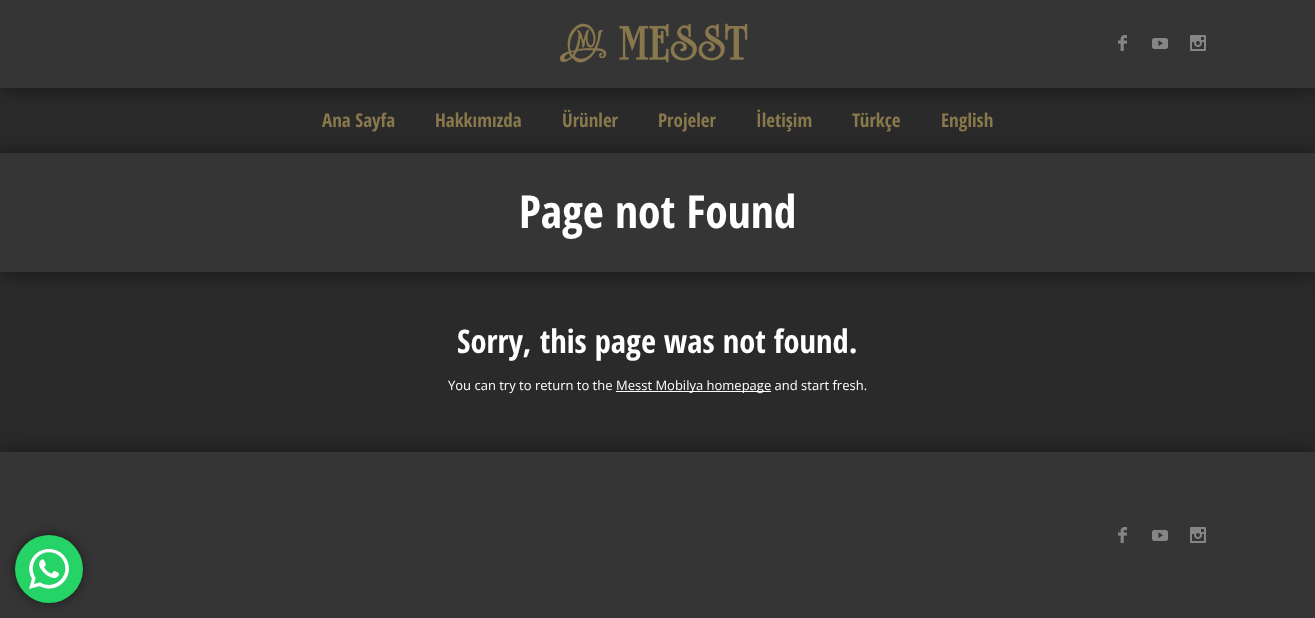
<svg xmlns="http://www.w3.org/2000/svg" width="1315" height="618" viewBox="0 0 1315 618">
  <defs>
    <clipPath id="clip1"><rect x="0" y="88" width="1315" height="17"/></clipPath>
    <clipPath id="clip2"><path d="M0 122H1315V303H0ZM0 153H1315V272H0Z" clip-rule="evenodd"/></clipPath>
  </defs>
  <rect width="100%" height="100%" fill="rgb(53,53,53)"/>
  <g clip-path="url(#clip1)">
    <rect x="0" y="0" width="1315" height="88" fill="rgba(0,0,0,0.5)" filter="blur(10px)"/>
  </g>
  <image x="559" y="23" width="189" height="40" href="pic1.png"/>
  <image x="1118" y="35" width="9" height="16" href="pic2.png"/>
  <image x="1152" y="38" width="16" height="11" href="pic3.png"/>
  <image x="1190" y="35" width="16" height="16" href="pic4.png"/>
  <rect x="0" y="272" width="1315" height="180" fill="rgb(42,42,42)"/>
  <g clip-path="url(#clip2)">
    <rect x="0" y="153" width="1315" height="119" fill="rgba(0,0,0,0.5)" filter="blur(10px)"/>
  </g>
  <rect x="0" y="88" width="1315" height="65" fill="rgba(0,0,0,0.2)"/>
  <g font-family="Open Sans Condensed" font-size="19" font-weight="bold" fill="rgb(137,120,76)">
    <text x="322" y="127">Ana Sayfa</text>
    <text x="435" y="127">Hakkımızda</text>
    <text x="562" y="127">Ürünler</text>
    <text x="658" y="127">Projeler</text>
    <text x="756" y="127">İletişim</text>
    <text x="852" y="127">Türkçe</text>
    <text x="941" y="127">English</text>
  </g>
  <text x="519" y="228" font-family="Open Sans Condensed" font-size="45.5" font-weight="bold" fill="rgb(255,255,255)">Page not Found</text>
  <text x="457" y="353" font-family="Open Sans Condensed" font-size="32.5" font-weight="bold" fill="rgb(255,255,255)">Sorry, this page was not found.</text>
  <text x="448" y="390" font-family="Open Sans" font-size="13" fill="rgb(255,255,255)">You can try to return to the</text>
  <rect x="616" y="391" width="155" height="1" fill="rgb(255,255,255)"/>
  <text x="616" y="390" font-family="Open Sans" font-size="13" fill="rgb(255,255,255)">Messt Mobilya homepage and start fresh.</text>
  <rect x="0" y="452" width="1315" height="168" fill="rgba(0,0,0,0.5)" filter="blur(10px)"/>
  <rect x="0" y="452" width="1315" height="166" fill="rgb(53,53,53)"/>
  <image x="1118" y="527" width="9" height="16" href="pic2.png"/>
  <image x="1152" y="530" width="16" height="11" href="pic3.png"/>
  <image x="1190" y="527" width="16" height="16" href="pic4.png"/>
  <rect x="15" y="535" width="68" height="68" rx="34" fill="rgba(0,0,0,0.5)" filter="blur(5.5px)"/>
  <circle cx="49" cy="569" r="34" fill="rgb(37,211,102)"/>
  <image x="29" y="549" width="40" height="40" href="pic5.png"/>
</svg>
